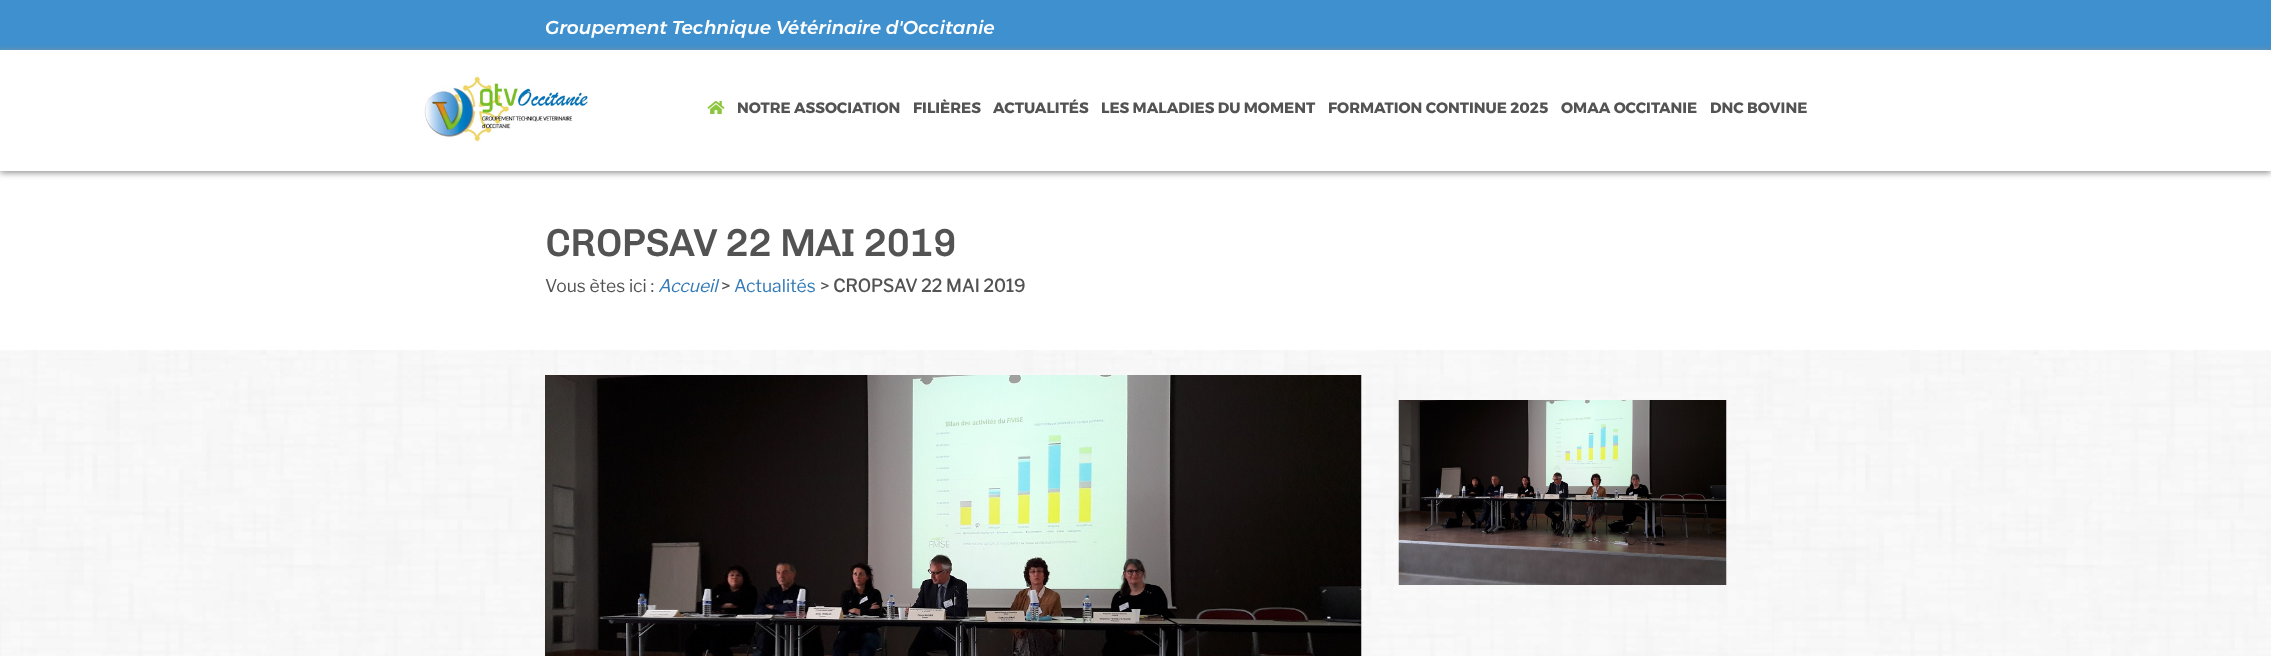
<svg xmlns="http://www.w3.org/2000/svg" width="2271" height="656" viewBox="0 0 2271 656">
  <defs>
    <clipPath id="clip1"><path d="M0 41H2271V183H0ZM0 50H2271V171H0Z" clip-rule="evenodd"/></clipPath>
  </defs>
  <rect width="100%" height="100%" fill="rgb(255,255,255)"/>
  <rect x="0" y="0" width="2271" height="50" fill="rgb(63,144,206)"/>
  <text x="545" y="34" font-family="Montserrat" font-size="18.75" font-weight="500" font-style="italic" fill="rgb(255,255,255)">Groupement Technique Vétérinaire d'Occitanie</text>
  <g clip-path="url(#clip1)">
    <rect x="0" y="51" width="2271" height="122" fill="rgb(147,147,147)" filter="blur(3px)"/>
  </g>
  <image x="424" y="76" width="164" height="66" href="pic1.png"/>
  <image x="707" y="100" width="18" height="15" href="pic2.png"/>
  <g font-family="Montserrat" font-size="15" font-weight="bold" fill="rgb(83,83,83)">
    <text x="737" y="113">NOTRE ASSOCIATION</text>
    <text x="913" y="113">FILIÈRES</text>
    <text x="993" y="113">ACTUALITÉS</text>
    <text x="1101" y="113">LES MALADIES DU MOMENT</text>
    <text x="1328" y="113">FORMATION CONTINUE 2025</text>
    <text x="1561" y="113">OMAA OCCITANIE</text>
    <text x="1710" y="113">DNC BOVINE</text>
  </g>
  <text x="545" y="256" font-family="Chivo" font-size="37.5" font-weight="bold" fill="rgb(83,83,83)">CROPSAV 22 MAI 2019</text>
  <text x="545" y="292" font-family="Libre Franklin" font-size="17.5" font-weight="100" fill="rgb(83,83,83)">Vous ètes ici :</text>
  <text x="658" y="292" font-family="Libre Franklin" font-size="17.5" font-weight="100" font-style="italic" fill="rgb(51,122,183)">Accueil</text>
  <text x="721" y="292" font-family="Libre Franklin" font-size="17.5" font-weight="100" fill="rgb(83,83,83)">&gt;</text>
  <text x="734" y="292" font-family="Libre Franklin" font-size="17.5" font-weight="100" fill="rgb(51,122,183)">Actualités</text>
  <text x="820" y="292" font-family="Libre Franklin" font-size="17.5" font-weight="100" fill="rgb(83,83,83)">&gt;</text>
  <text x="833" y="292" font-family="Libre Franklin" font-size="17.5" font-weight="bold" fill="rgb(83,83,83)">CROPSAV 22 MAI 2019</text>
  <image x="0" y="350" width="2271" height="306" href="pic3.png"/>
  <image x="545" y="375" width="817" height="281" href="pic4.png"/>
  <image x="1398" y="400" width="329" height="185" href="pic5.png"/>
</svg>
